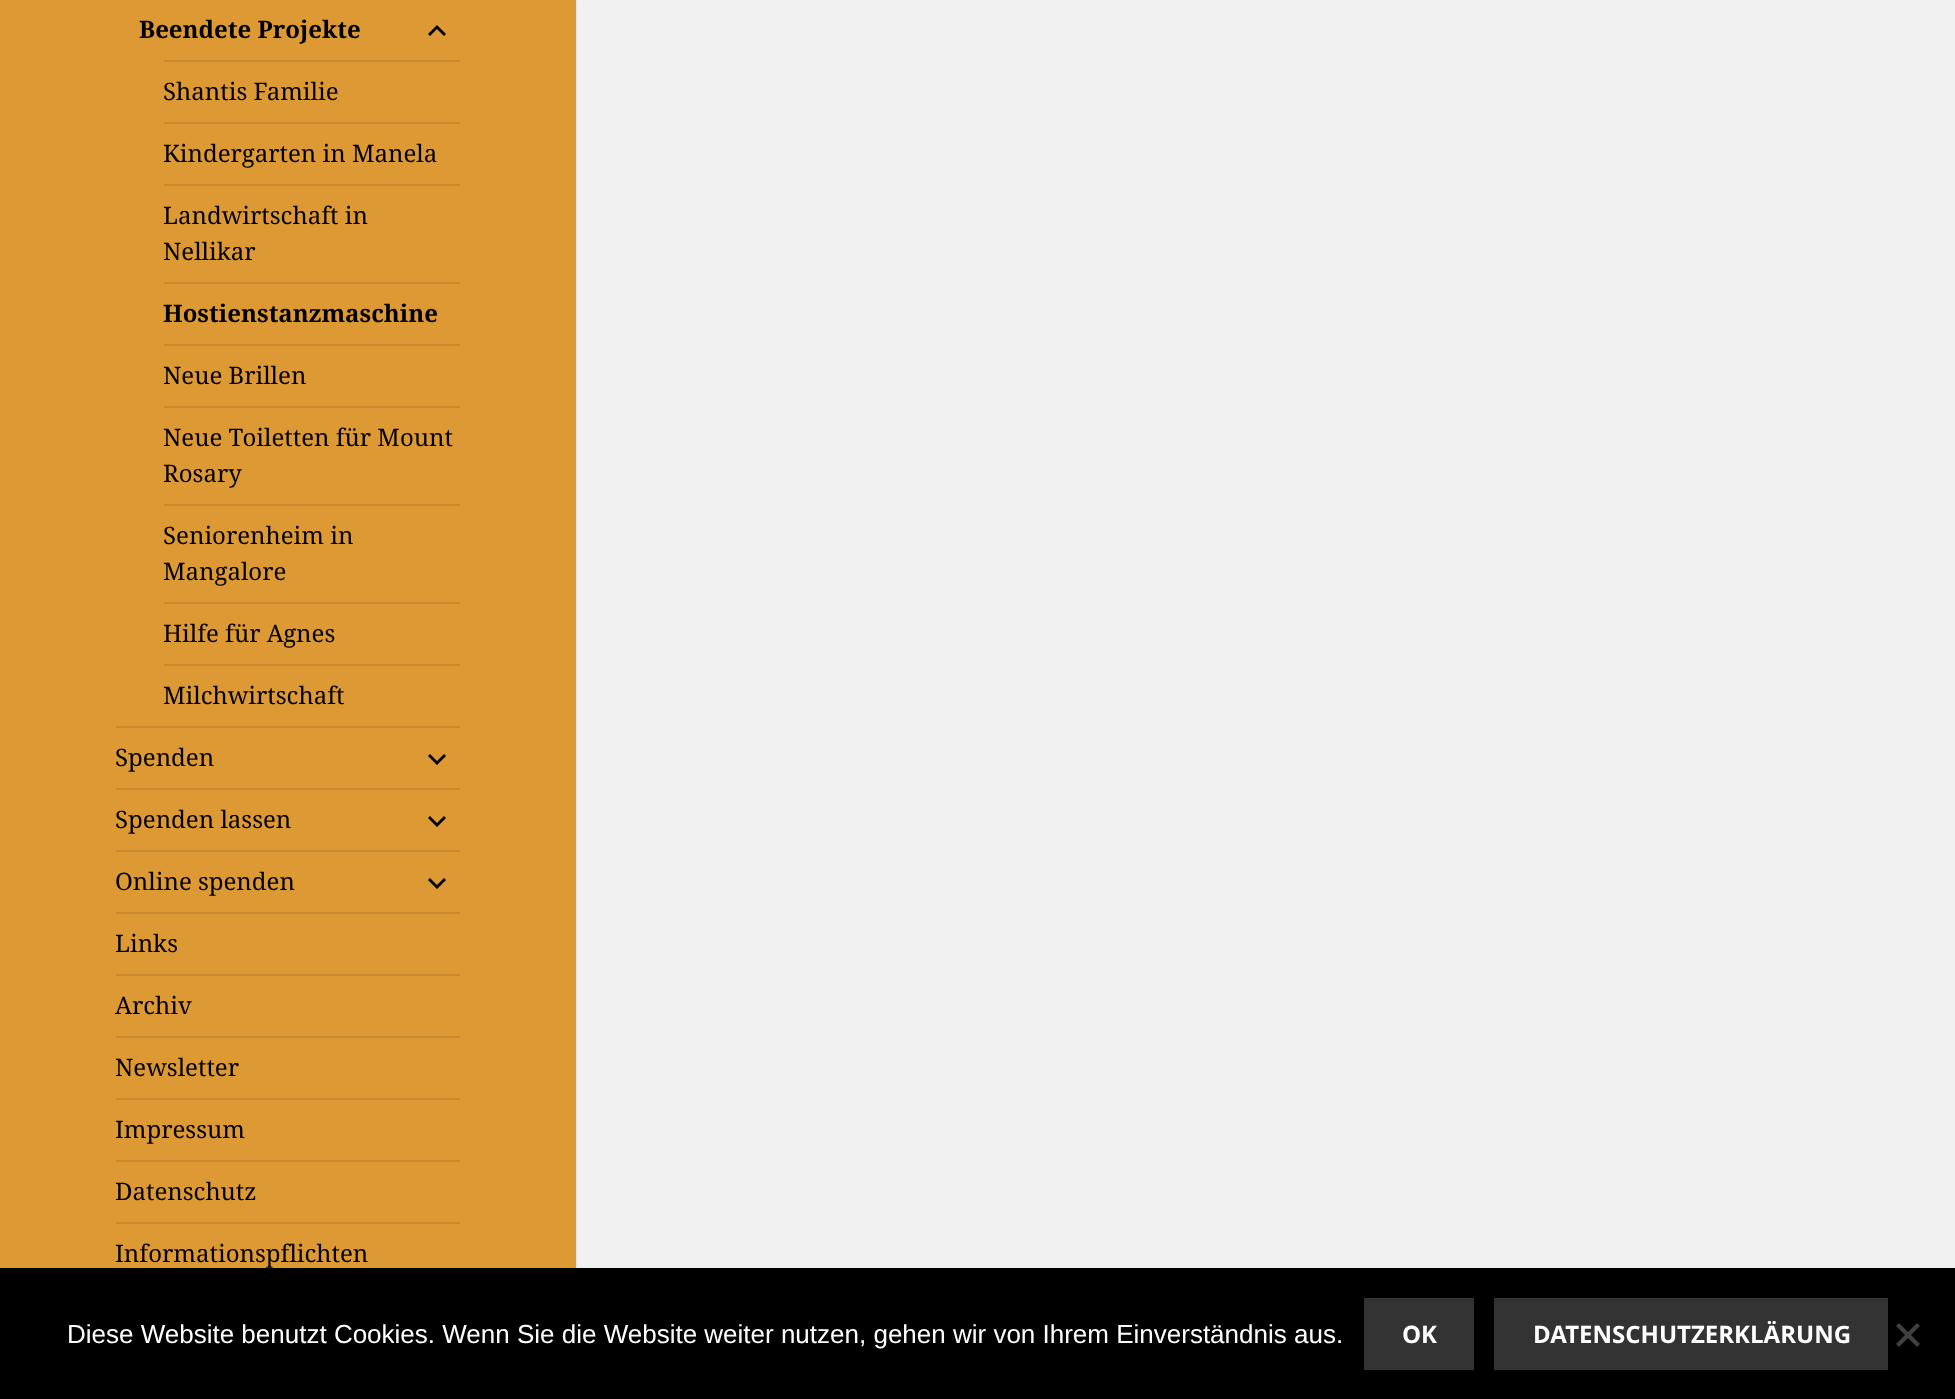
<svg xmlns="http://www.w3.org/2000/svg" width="1955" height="1399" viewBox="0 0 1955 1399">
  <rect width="100%" height="100%" fill="rgb(241,241,241)"/>
  <rect x="0" y="0" width="576" height="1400" fill="rgba(0,0,0,0.15)" filter="blur(1px)"/>
  <rect x="0" y="0" width="576" height="1268" fill="rgb(221,153,51)"/>
  <text x="139" y="38" font-family="Noto Serif" font-size="24" font-weight="bold" fill="rgb(0,0,0)">Beendete Projekte</text>
  <path d="M444 36L437 29L430 36L428 34L437 25L446 34Z" fill="rgb(0,0,0)"/>
  <rect x="164" y="60" width="296" height="2" fill="rgb(199,138,46)"/>
  <text x="163" y="100" font-family="Noto Serif" font-size="24" fill="rgb(0,0,0)">Shantis Familie</text>
  <rect x="164" y="122" width="296" height="2" fill="rgb(199,138,46)"/>
  <text x="163" y="162" font-family="Noto Serif" font-size="24" fill="rgb(0,0,0)">Kindergarten in Manela</text>
  <rect x="164" y="184" width="296" height="2" fill="rgb(199,138,46)"/>
  <g font-family="Noto Serif" font-size="24" fill="rgb(0,0,0)">
    <text>
      <tspan x="163" y="224">Landwirtschaft in</tspan>
      <tspan x="163" y="260">Nellikar</tspan>
    </text>
  </g>
  <rect x="164" y="282" width="296" height="2" fill="rgb(199,138,46)"/>
  <text x="163" y="322" font-family="Noto Serif" font-size="24" font-weight="bold" fill="rgb(0,0,0)">Hostienstanzmaschine</text>
  <rect x="164" y="344" width="296" height="2" fill="rgb(199,138,46)"/>
  <text x="163" y="384" font-family="Noto Serif" font-size="24" fill="rgb(0,0,0)">Neue Brillen</text>
  <rect x="164" y="406" width="296" height="2" fill="rgb(199,138,46)"/>
  <g font-family="Noto Serif" font-size="24" fill="rgb(0,0,0)">
    <text>
      <tspan x="163" y="446">Neue Toiletten für Mount</tspan>
      <tspan x="163" y="482">Rosary</tspan>
    </text>
  </g>
  <rect x="164" y="504" width="296" height="2" fill="rgb(199,138,46)"/>
  <g font-family="Noto Serif" font-size="24" fill="rgb(0,0,0)">
    <text>
      <tspan x="163" y="544">Seniorenheim in</tspan>
      <tspan x="163" y="580">Mangalore</tspan>
    </text>
  </g>
  <rect x="164" y="602" width="296" height="2" fill="rgb(199,138,46)"/>
  <text x="163" y="642" font-family="Noto Serif" font-size="24" fill="rgb(0,0,0)">Hilfe für Agnes</text>
  <rect x="164" y="664" width="296" height="2" fill="rgb(199,138,46)"/>
  <text x="163" y="704" font-family="Noto Serif" font-size="24" fill="rgb(0,0,0)">Milchwirtschaft</text>
  <rect x="116" y="726" width="344" height="2" fill="rgb(199,138,46)"/>
  <text x="115" y="766" font-family="Noto Serif" font-size="24" fill="rgb(0,0,0)">Spenden</text>
  <path d="M444 754L446 756L437 765L428 756L430 754L437 761Z" fill="rgb(0,0,0)"/>
  <rect x="116" y="788" width="344" height="2" fill="rgb(199,138,46)"/>
  <text x="115" y="828" font-family="Noto Serif" font-size="24" fill="rgb(0,0,0)">Spenden lassen</text>
  <path d="M444 816L446 818L437 827L428 818L430 816L437 823Z" fill="rgb(0,0,0)"/>
  <rect x="116" y="850" width="344" height="2" fill="rgb(199,138,46)"/>
  <text x="115" y="890" font-family="Noto Serif" font-size="24" fill="rgb(0,0,0)">Online spenden</text>
  <path d="M444 878L446 880L437 889L428 880L430 878L437 885Z" fill="rgb(0,0,0)"/>
  <rect x="116" y="912" width="344" height="2" fill="rgb(199,138,46)"/>
  <text x="115" y="952" font-family="Noto Serif" font-size="24" fill="rgb(0,0,0)">Links</text>
  <rect x="116" y="974" width="344" height="2" fill="rgb(199,138,46)"/>
  <text x="115" y="1014" font-family="Noto Serif" font-size="24" fill="rgb(0,0,0)">Archiv</text>
  <rect x="116" y="1036" width="344" height="2" fill="rgb(199,138,46)"/>
  <text x="115" y="1076" font-family="Noto Serif" font-size="24" fill="rgb(0,0,0)">Newsletter</text>
  <rect x="116" y="1098" width="344" height="2" fill="rgb(199,138,46)"/>
  <text x="115" y="1138" font-family="Noto Serif" font-size="24" fill="rgb(0,0,0)">Impressum</text>
  <rect x="116" y="1160" width="344" height="2" fill="rgb(199,138,46)"/>
  <text x="115" y="1200" font-family="Noto Serif" font-size="24" fill="rgb(0,0,0)">Datenschutz</text>
  <rect x="116" y="1222" width="344" height="2" fill="rgb(199,138,46)"/>
  <text x="115" y="1262" font-family="Noto Serif" font-size="24" fill="rgb(0,0,0)">Informationspflichten</text>
  <rect x="0" y="1268" width="1955" height="131" fill="rgb(0,0,0)"/>
  <text x="67" y="1343" font-family="Liberation Sans" font-size="26" fill="rgb(255,255,255)">Diese Website benutzt Cookies. Wenn Sie die Website weiter nutzen, gehen wir von Ihrem Einverständnis aus.</text>
  <rect x="1364" y="1298" width="110" height="72" fill="rgb(51,51,51)"/>
  <text x="1402" y="1343" font-family="Noto Sans" font-size="24" font-weight="bold" fill="rgb(255,255,255)">OK</text>
  <rect x="1494" y="1298" width="394" height="72" fill="rgb(51,51,51)"/>
  <text x="1533" y="1343" font-family="Noto Sans" font-size="24" font-weight="bold" fill="rgb(255,255,255)">DATENSCHUTZERKLÄRUNG</text>
  <path d="M1917 1323L1920 1326L1899 1347L1896 1344Z" fill="rgb(64,64,64)"/>
  <path d="M1896 1326L1899 1323L1920 1344L1917 1347Z" fill="rgb(64,64,64)"/>
</svg>
